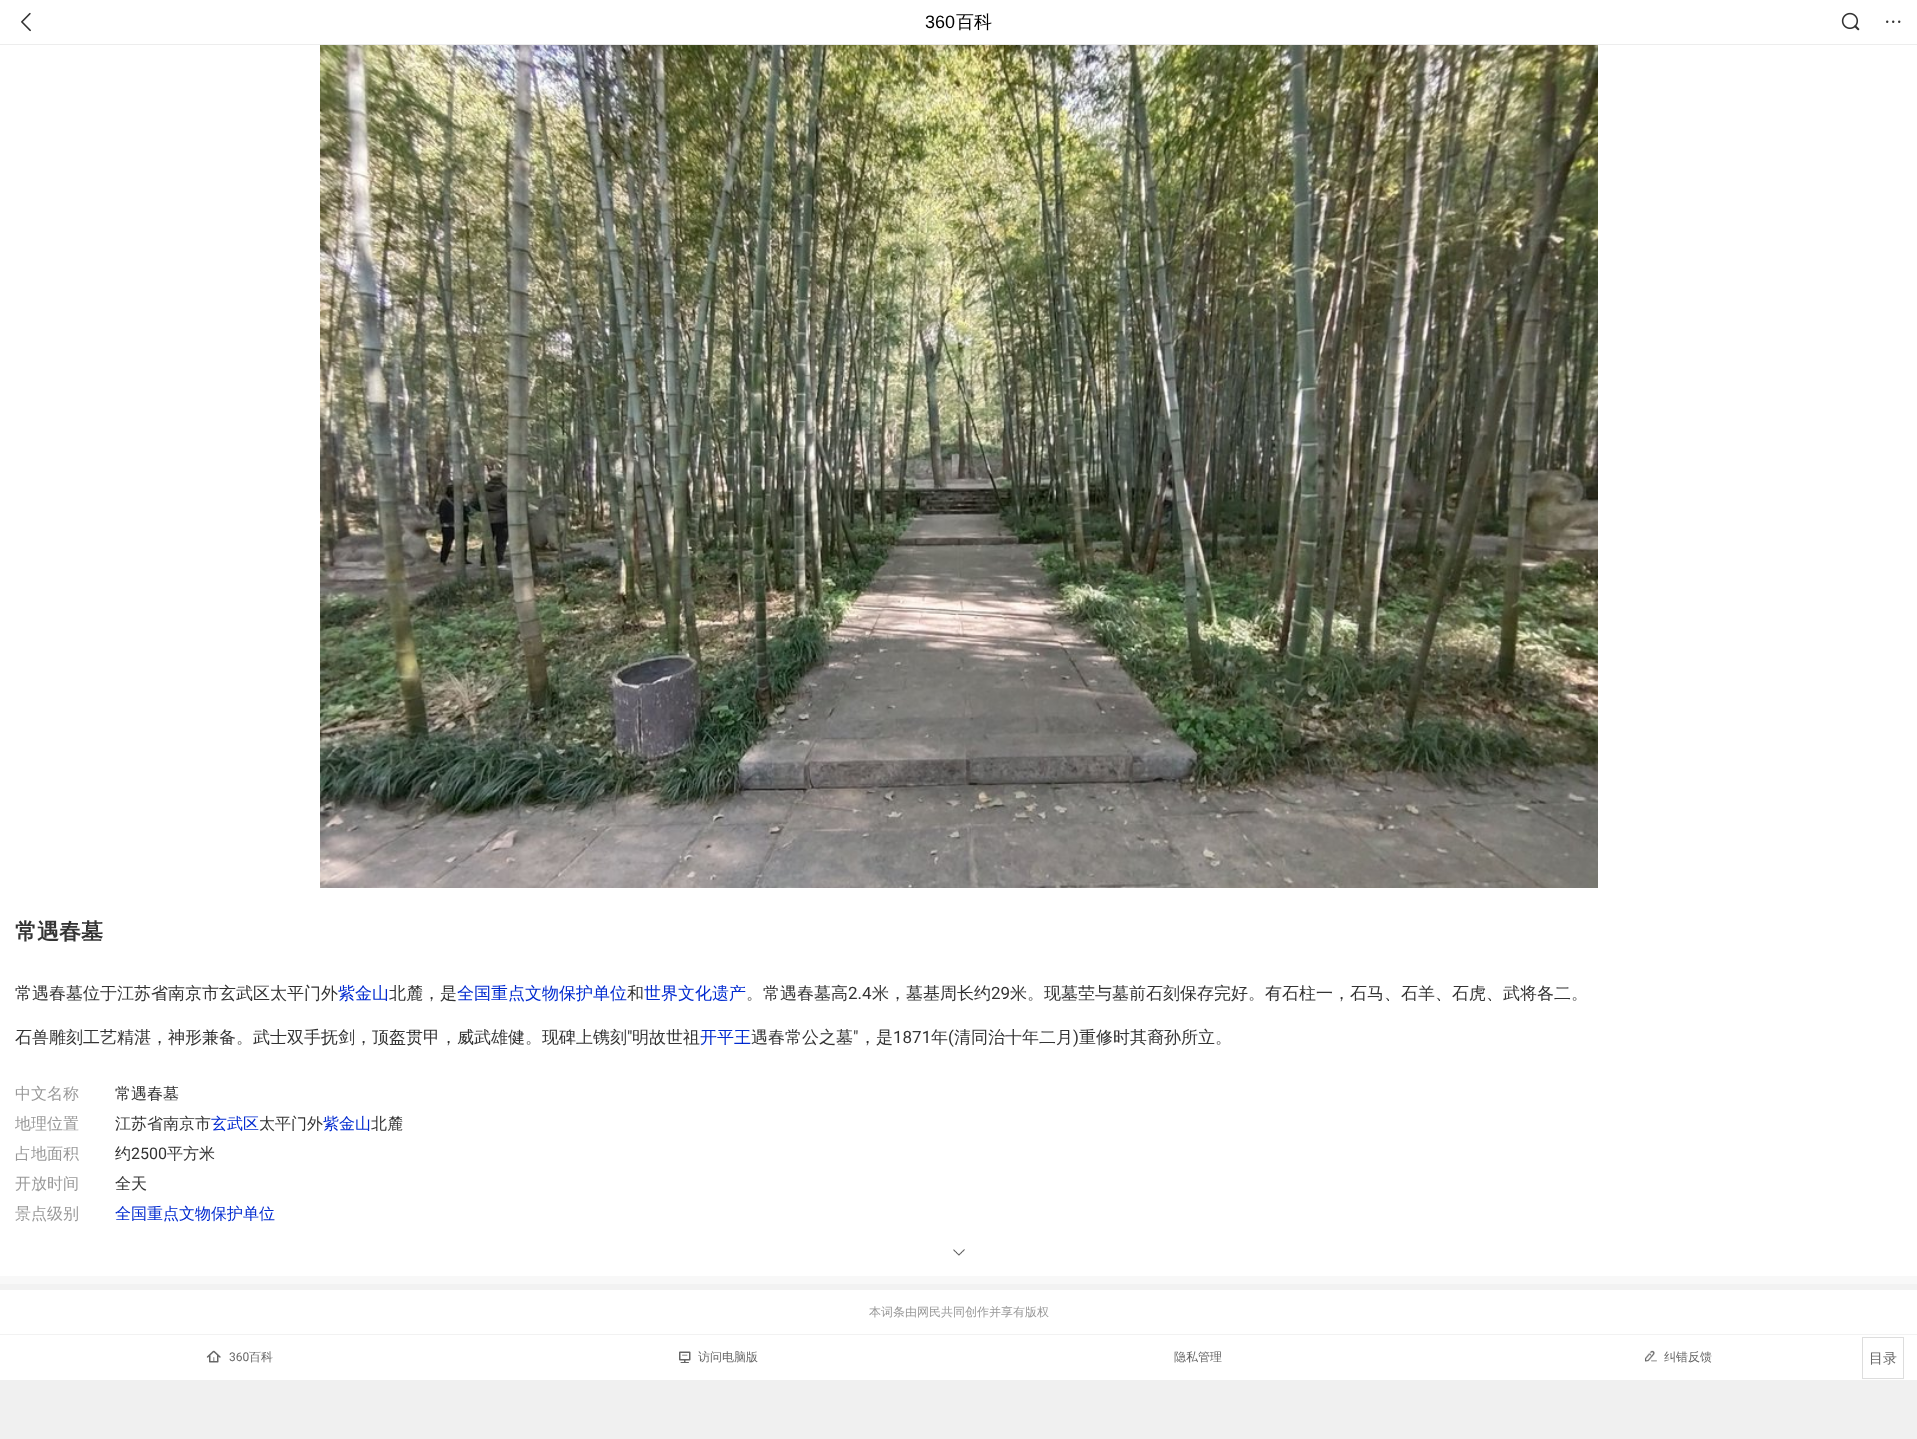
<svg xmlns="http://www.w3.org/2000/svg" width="1917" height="1439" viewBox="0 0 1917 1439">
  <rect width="100%" height="100%" fill="rgb(240,240,240)"/>
  <rect x="0" y="45" width="1917" height="1335" fill="rgb(255,255,255)"/>
  <rect x="0" y="0" width="1917" height="44" fill="rgb(255,255,255)"/>
  <rect x="0" y="44" width="1917" height="1" fill="rgb(237,237,237)"/>
  <image x="21" y="12" width="10" height="20" href="pic1.png"/>
  <text x="925" y="28" font-family="Liberation Sans" font-size="18" fill="rgb(0,0,0)">360</text>
  <text x="956" y="28" font-family="WenQuanYi Zen Hei" font-size="18" font-weight="500" fill="rgb(0,0,0)">百科</text>
  <image x="1841" y="12" width="19" height="19" href="pic2.png"/>
  <circle cx="1887.2" cy="21.8" r="1.2" fill="rgb(51,51,51)"/>
  <circle cx="1893.2" cy="21.8" r="1.2" fill="rgb(51,51,51)"/>
  <circle cx="1899.2" cy="21.8" r="1.2" fill="rgb(51,51,51)"/>
  <rect x="1862.5" y="1337.5" width="41" height="41" fill="none" stroke="rgb(221,221,221)"/>
  <text x="1869" y="1363" font-family="WenQuanYi Zen Hei" font-size="14" font-weight="500" fill="rgb(102,102,102)">目录</text>
  <image x="320" y="45" width="1278" height="843" href="pic3.png"/>
  <text x="15" y="939" font-family="WenQuanYi Zen Hei" font-size="22" font-weight="bold" fill="rgb(51,51,51)">常遇春墓</text>
  <text x="15" y="999" font-family="WenQuanYi Zen Hei" font-size="17" font-weight="500" fill="rgb(51,51,51)">常遇春墓位于江苏省南京市玄武区太平门外</text>
  <text x="338" y="999" font-family="WenQuanYi Zen Hei" font-size="17" font-weight="500" fill="rgb(0,42,208)">紫金山</text>
  <text x="389" y="999" font-family="WenQuanYi Zen Hei" font-size="17" font-weight="500" fill="rgb(51,51,51)">北麓，是</text>
  <text x="457" y="999" font-family="WenQuanYi Zen Hei" font-size="17" font-weight="500" fill="rgb(0,42,208)">全国重点文物保护单位</text>
  <text x="627" y="999" font-family="WenQuanYi Zen Hei" font-size="17" font-weight="500" fill="rgb(51,51,51)">和</text>
  <text x="644" y="999" font-family="WenQuanYi Zen Hei" font-size="17" font-weight="500" fill="rgb(0,42,208)">世界文化遗产</text>
  <text x="746" y="999" font-family="WenQuanYi Zen Hei" font-size="17" font-weight="500" fill="rgb(51,51,51)">。常遇春墓高</text>
  <text x="848" y="999" font-family="Roboto" font-size="17" fill="rgb(51,51,51)">2.4</text>
  <text x="872" y="999" font-family="WenQuanYi Zen Hei" font-size="17" font-weight="500" fill="rgb(51,51,51)">米，墓基周长约</text>
  <text x="991" y="999" font-family="Roboto" font-size="17" fill="rgb(51,51,51)">29</text>
  <g font-family="WenQuanYi Zen Hei" font-size="17" font-weight="500" fill="rgb(51,51,51)">
    <text x="1010" y="999">米。现墓茔与墓前石刻保存完好。有石柱一，石马、石羊、石虎、武将各二。</text>
    <text x="15" y="1043">石兽雕刻工艺精湛，神形兼备。武士双手抚剑，顶盔贯甲，威武雄健。现碑上镌刻</text>
  </g>
  <text x="627" y="1043" font-family="Roboto" font-size="17" fill="rgb(51,51,51)">"</text>
  <text x="632" y="1043" font-family="WenQuanYi Zen Hei" font-size="17" font-weight="500" fill="rgb(51,51,51)">明故世祖</text>
  <text x="700" y="1043" font-family="WenQuanYi Zen Hei" font-size="17" font-weight="500" fill="rgb(0,42,208)">开平王</text>
  <text x="751" y="1043" font-family="WenQuanYi Zen Hei" font-size="17" font-weight="500" fill="rgb(51,51,51)">遇春常公之墓</text>
  <text x="853" y="1043" font-family="Roboto" font-size="17" fill="rgb(51,51,51)">"</text>
  <text x="859" y="1043" font-family="WenQuanYi Zen Hei" font-size="17" font-weight="500" fill="rgb(51,51,51)">，是</text>
  <text x="893" y="1043" font-family="Roboto" font-size="17" fill="rgb(51,51,51)">1871</text>
  <text x="931" y="1043" font-family="WenQuanYi Zen Hei" font-size="17" font-weight="500" fill="rgb(51,51,51)">年</text>
  <text x="948" y="1043" font-family="Roboto" font-size="17" fill="rgb(51,51,51)">(</text>
  <text x="954" y="1043" font-family="WenQuanYi Zen Hei" font-size="17" font-weight="500" fill="rgb(51,51,51)">清同治十年二月</text>
  <text x="1073" y="1043" font-family="Roboto" font-size="17" fill="rgb(51,51,51)">)</text>
  <text x="1079" y="1043" font-family="WenQuanYi Zen Hei" font-size="17" font-weight="500" fill="rgb(51,51,51)">重修时其裔孙所立。</text>
  <rect x="0" y="1276" width="1917" height="8" fill="rgb(248,248,248)"/>
  <text x="15" y="1099" font-family="WenQuanYi Zen Hei" font-size="16" font-weight="500" fill="rgb(153,153,153)">中文名称</text>
  <text x="115" y="1099" font-family="WenQuanYi Zen Hei" font-size="16" font-weight="500" fill="rgb(51,51,51)">常遇春墓</text>
  <text x="15" y="1129" font-family="WenQuanYi Zen Hei" font-size="16" font-weight="500" fill="rgb(153,153,153)">地理位置</text>
  <text x="115" y="1129" font-family="WenQuanYi Zen Hei" font-size="16" font-weight="500" fill="rgb(51,51,51)">江苏省南京市</text>
  <text x="211" y="1129" font-family="WenQuanYi Zen Hei" font-size="16" font-weight="500" fill="rgb(0,42,208)">玄武区</text>
  <text x="259" y="1129" font-family="WenQuanYi Zen Hei" font-size="16" font-weight="500" fill="rgb(51,51,51)">太平门外</text>
  <text x="323" y="1129" font-family="WenQuanYi Zen Hei" font-size="16" font-weight="500" fill="rgb(0,42,208)">紫金山</text>
  <text x="371" y="1129" font-family="WenQuanYi Zen Hei" font-size="16" font-weight="500" fill="rgb(51,51,51)">北麓</text>
  <text x="15" y="1159" font-family="WenQuanYi Zen Hei" font-size="16" font-weight="500" fill="rgb(153,153,153)">占地面积</text>
  <text x="115" y="1159" font-family="WenQuanYi Zen Hei" font-size="16" font-weight="500" fill="rgb(51,51,51)">约</text>
  <text x="131" y="1159" font-family="Roboto" font-size="16" fill="rgb(51,51,51)">2500</text>
  <text x="167" y="1159" font-family="WenQuanYi Zen Hei" font-size="16" font-weight="500" fill="rgb(51,51,51)">平方米</text>
  <text x="15" y="1189" font-family="WenQuanYi Zen Hei" font-size="16" font-weight="500" fill="rgb(153,153,153)">开放时间</text>
  <text x="115" y="1189" font-family="WenQuanYi Zen Hei" font-size="16" font-weight="500" fill="rgb(51,51,51)">全天</text>
  <text x="15" y="1219" font-family="WenQuanYi Zen Hei" font-size="16" font-weight="500" fill="rgb(153,153,153)">景点级别</text>
  <text x="115" y="1219" font-family="WenQuanYi Zen Hei" font-size="16" font-weight="500" fill="rgb(0,42,208)">全国重点文物保护单位</text>
  <image x="953" y="1249" width="12" height="7" href="pic4.png"/>
  <rect x="0" y="1284" width="1917" height="6" fill="rgb(242,242,242)"/>
  <text x="869" y="1316" font-family="WenQuanYi Zen Hei" font-size="12" font-weight="500" fill="rgb(153,153,153)">本词条由网民共同创作并享有版权</text>
  <rect x="0" y="1334" width="1917" height="1" fill="rgb(242,242,242)"/>
  <image x="206" y="1350" width="15" height="13" href="pic5.png"/>
  <text x="229" y="1361" font-family="Roboto" font-size="12" fill="rgb(102,102,102)">360</text>
  <text x="249" y="1361" font-family="WenQuanYi Zen Hei" font-size="12" font-weight="500" fill="rgb(102,102,102)">百科</text>
  <image x="679" y="1351" width="12" height="12" href="pic6.png"/>
  <g font-family="WenQuanYi Zen Hei" font-size="12" font-weight="500" fill="rgb(102,102,102)">
    <text x="698" y="1361">访问电脑版</text>
    <text x="1174" y="1361">隐私管理</text>
  </g>
  <image x="1644" y="1350" width="13" height="12" href="pic7.png"/>
  <text x="1664" y="1361" font-family="WenQuanYi Zen Hei" font-size="12" font-weight="500" fill="rgb(102,102,102)">纠错反馈</text>
</svg>
